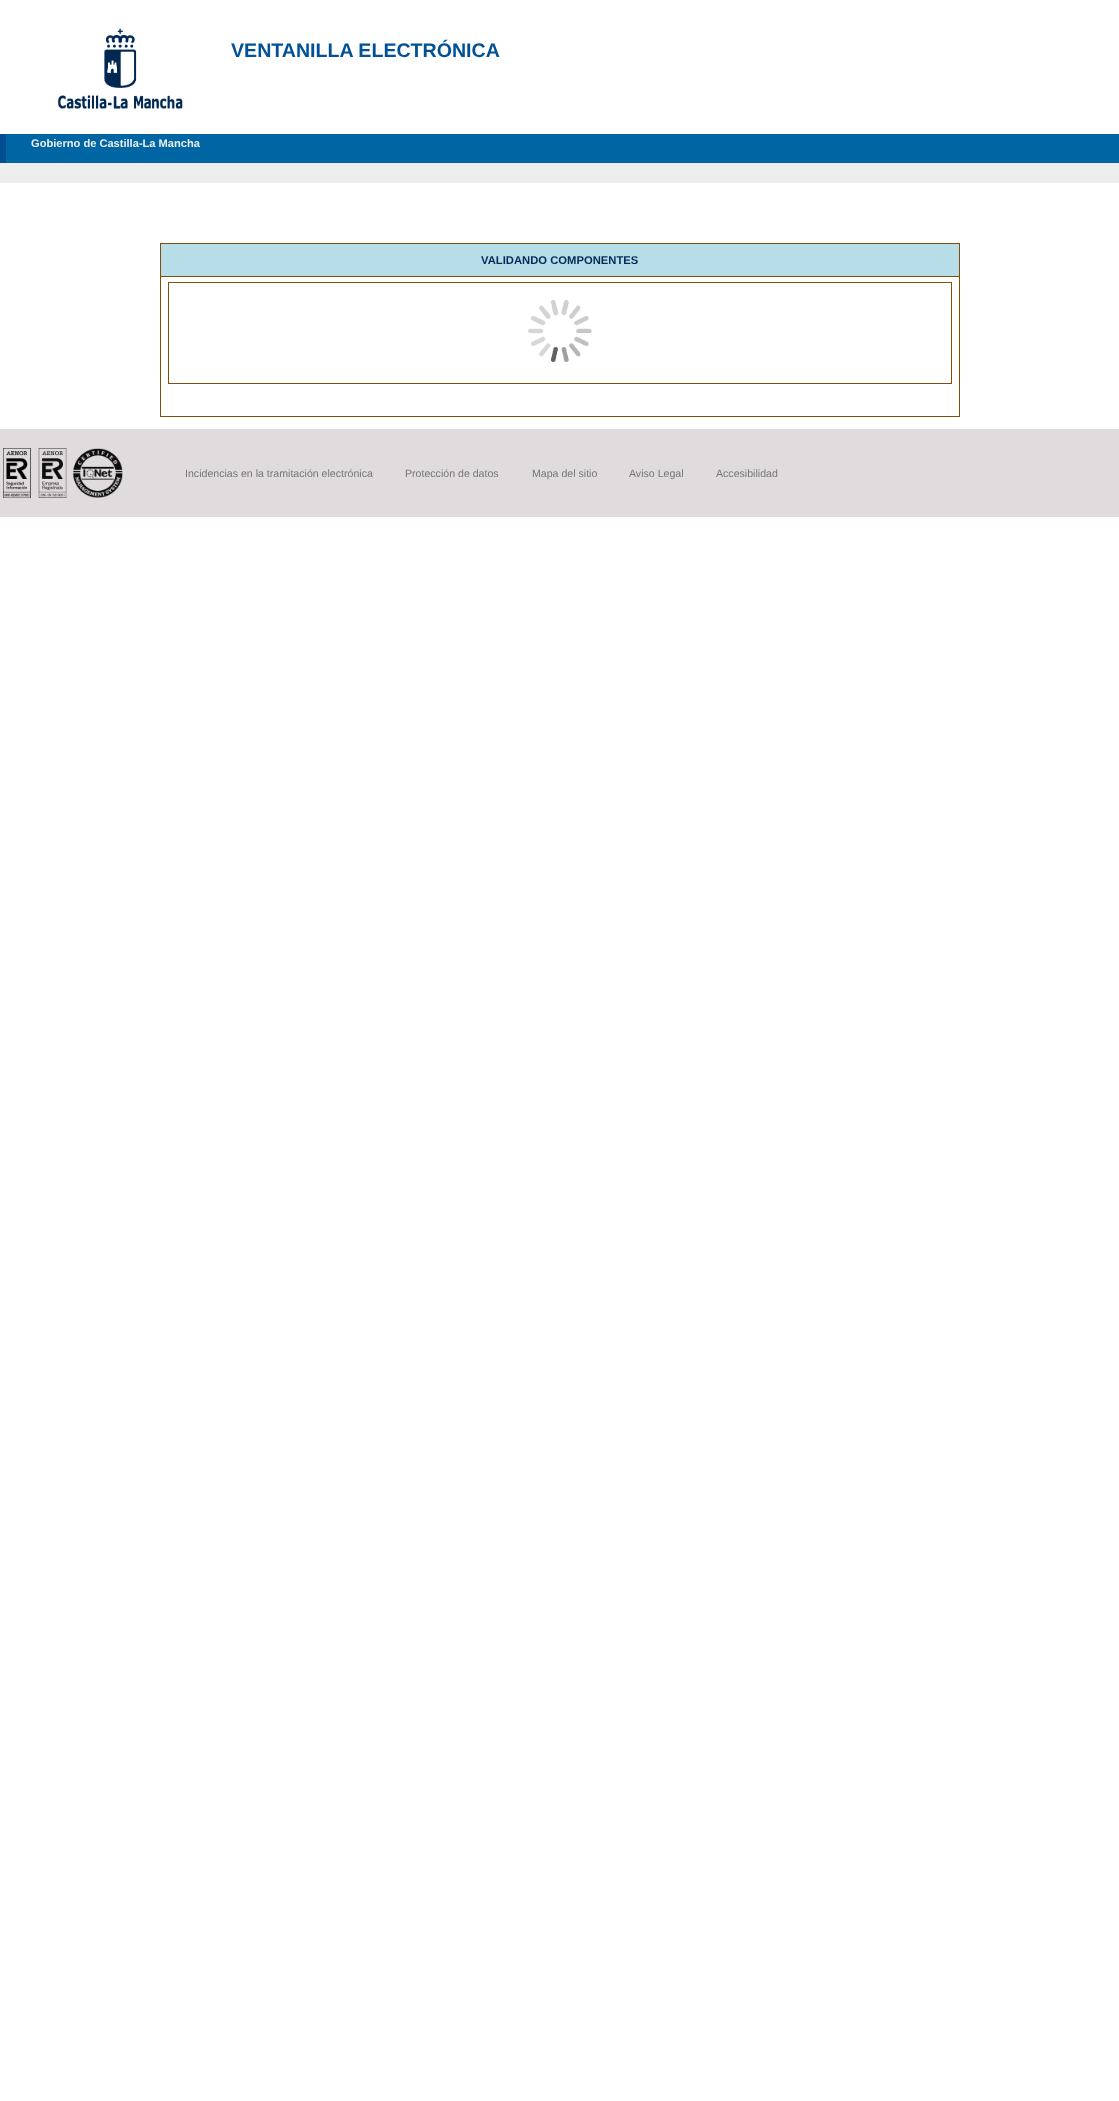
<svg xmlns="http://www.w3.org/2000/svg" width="1119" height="2101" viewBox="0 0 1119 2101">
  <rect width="100%" height="100%" fill="rgb(255,255,255)"/>
  <image x="57" y="28" width="126" height="81" href="pic1.png"/>
  <text x="231" y="57" font-family="Liberation Sans" font-size="19.6" font-weight="bold" fill="rgb(0,81,150)">VENTANILLA ELECTRÓNICA</text>
  <rect x="0" y="134" width="6" height="29" fill="rgb(0,77,144)"/>
  <rect x="6" y="134" width="1113" height="29" fill="rgb(0,101,163)"/>
  <text x="31" y="147" font-family="Liberation Sans" font-size="11.1" font-weight="bold" fill="rgb(238,238,238)">Gobierno de Castilla-La Mancha</text>
  <rect x="0" y="163" width="1119" height="20" fill="rgb(238,238,238)"/>
  <rect x="160.5" y="243.5" width="799" height="33" fill="rgb(183,222,232)" stroke="rgb(127,80,8)"/>
  <text x="481" y="264" font-family="Liberation Sans" font-size="11.25" font-weight="bold" fill="rgb(1,45,90)">VALIDANDO COMPONENTES</text>
  <rect x="959" y="277" width="1" height="140" fill="rgb(127,80,8)"/>
  <rect x="160" y="416" width="800" height="1" fill="rgb(127,80,8)"/>
  <rect x="160" y="277" width="1" height="140" fill="rgb(127,80,8)"/>
  <rect x="168.5" y="282.5" width="783" height="101" fill="none" stroke="rgb(127,80,8)"/>
  <image x="528" y="299" width="64" height="64" href="pic2.png"/>
  <rect x="0" y="429" width="1119" height="88" fill="rgb(224,220,221)"/>
  <image x="3" y="448" width="120" height="50" href="pic3.png"/>
  <g font-family="Liberation Sans" font-size="10.6" fill="rgb(115,120,118)">
    <text x="185" y="477">Incidencias en la tramitación electrónica</text>
    <text x="405" y="477">Protección de datos</text>
    <text x="532" y="477">Mapa del sitio</text>
    <text x="629" y="477">Aviso Legal</text>
    <text x="716" y="477">Accesibilidad</text>
  </g>
</svg>
